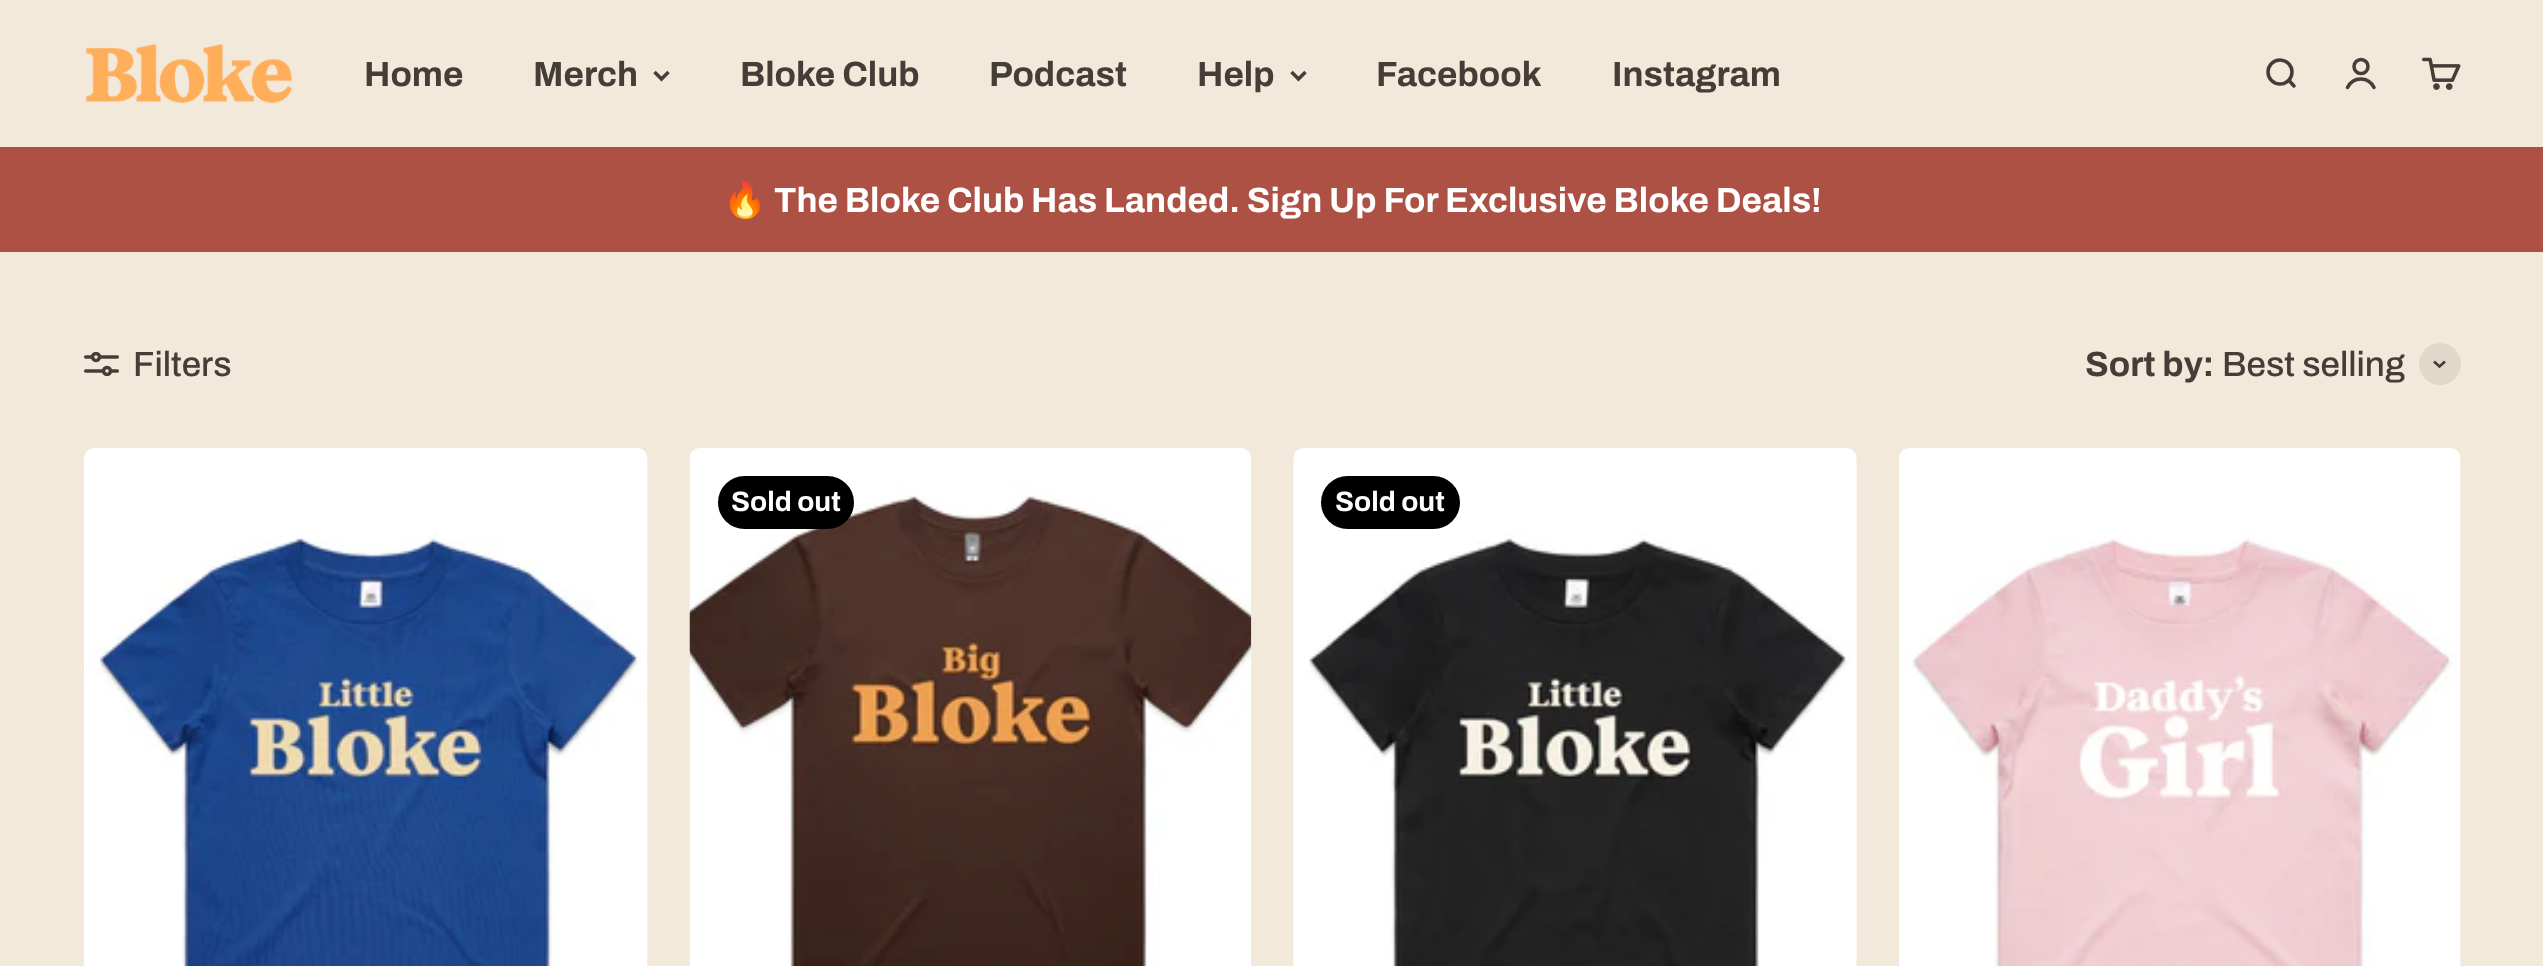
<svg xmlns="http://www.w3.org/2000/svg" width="2543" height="966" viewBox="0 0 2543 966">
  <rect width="100%" height="100%" fill="rgb(242,233,218)"/>
  <image x="85" y="44" width="208" height="60" href="pic1.png"/>
  <g font-family="Archivo" font-size="35" font-weight="bold" fill="rgb(68,61,56)">
    <text x="364" y="86">Home</text>
    <text x="533" y="86">Merch</text>
  </g>
  <path d="M654.5 72L661.5 79L668.5 72" fill="none" stroke="rgb(68,61,56)" stroke-width="3.5"/>
  <g font-family="Archivo" font-size="35" font-weight="bold" fill="rgb(68,61,56)">
    <text x="740" y="86">Bloke Club</text>
    <text x="989" y="86">Podcast</text>
    <text x="1197" y="86">Help</text>
  </g>
  <path d="M1291.5 72L1298.5 79L1305.5 72" fill="none" stroke="rgb(68,61,56)" stroke-width="3.5"/>
  <g font-family="Archivo" font-size="35" font-weight="bold" fill="rgb(68,61,56)">
    <text x="1376" y="86">Facebook</text>
    <text x="1612" y="86">Instagram</text>
  </g>
  <circle cx="2280" cy="72" r="12" fill="none" stroke="rgb(68,61,56)" stroke-width="3.5"/>
  <path d="M2289 80.5L2294 86" fill="none" stroke="rgb(68,61,56)" stroke-width="3.5" stroke-linecap="round" stroke-linejoin="round"/>
  <circle cx="2361" cy="66.5" r="7" fill="none" stroke="rgb(68,61,56)" stroke-width="3.5"/>
  <path d="M2347.5 87.5C2353 76 2368.5 76 2374 87.5" fill="none" stroke="rgb(68,61,56)" stroke-width="3.5" stroke-linecap="round"/>
  <image x="2422" y="57" width="39" height="33" href="pic2.png"/>
  <rect x="0" y="147" width="2543" height="105" fill="rgb(173,81,69)"/>
  <text x="723" y="212" font-family="Noto Color Emoji" font-size="35" font-weight="bold" fill="rgb(255,255,255)">🔥</text>
  <text x="774" y="212" font-family="Archivo" font-size="35" font-weight="bold" fill="rgb(255,255,255)">The Bloke Club Has Landed. Sign Up For Exclusive Bloke Deals!</text>
  <image x="84" y="352" width="35" height="24" href="pic3.png"/>
  <text x="133" y="376" font-family="Archivo" font-size="35" font-weight="500" fill="rgb(68,61,56)">Filters</text>
  <text x="2085" y="376" font-family="Archivo" font-size="35" font-weight="bold" fill="rgb(68,61,56)">Sort by:</text>
  <text x="2222" y="376" font-family="Archivo" font-size="35" font-weight="500" fill="rgb(68,61,56)">Best selling</text>
  <circle cx="2440" cy="364" r="21" fill="rgb(225,216,202)"/>
  <path d="M2434 361.5L2439.5 366.5L2445 361.5" fill="none" stroke="rgb(68,61,56)" stroke-width="2.6"/>
  <image x="84" y="448" width="564" height="518" href="pic4.png"/>
  <image x="689" y="448" width="563" height="518" href="pic5.png"/>
  <rect x="718" y="476" width="136" height="53" rx="26.5" fill="rgb(0,0,0)"/>
  <text x="731" y="511" font-family="Archivo" font-size="28" font-weight="bold" fill="rgb(255,255,255)">Sold out</text>
  <image x="1293" y="448" width="564" height="518" href="pic6.png"/>
  <rect x="1321" y="476" width="139" height="53" rx="26.5" fill="rgb(0,0,0)"/>
  <text x="1335" y="511" font-family="Archivo" font-size="28" font-weight="bold" fill="rgb(255,255,255)">Sold out</text>
  <image x="1899" y="448" width="562" height="518" href="pic7.png"/>
</svg>
